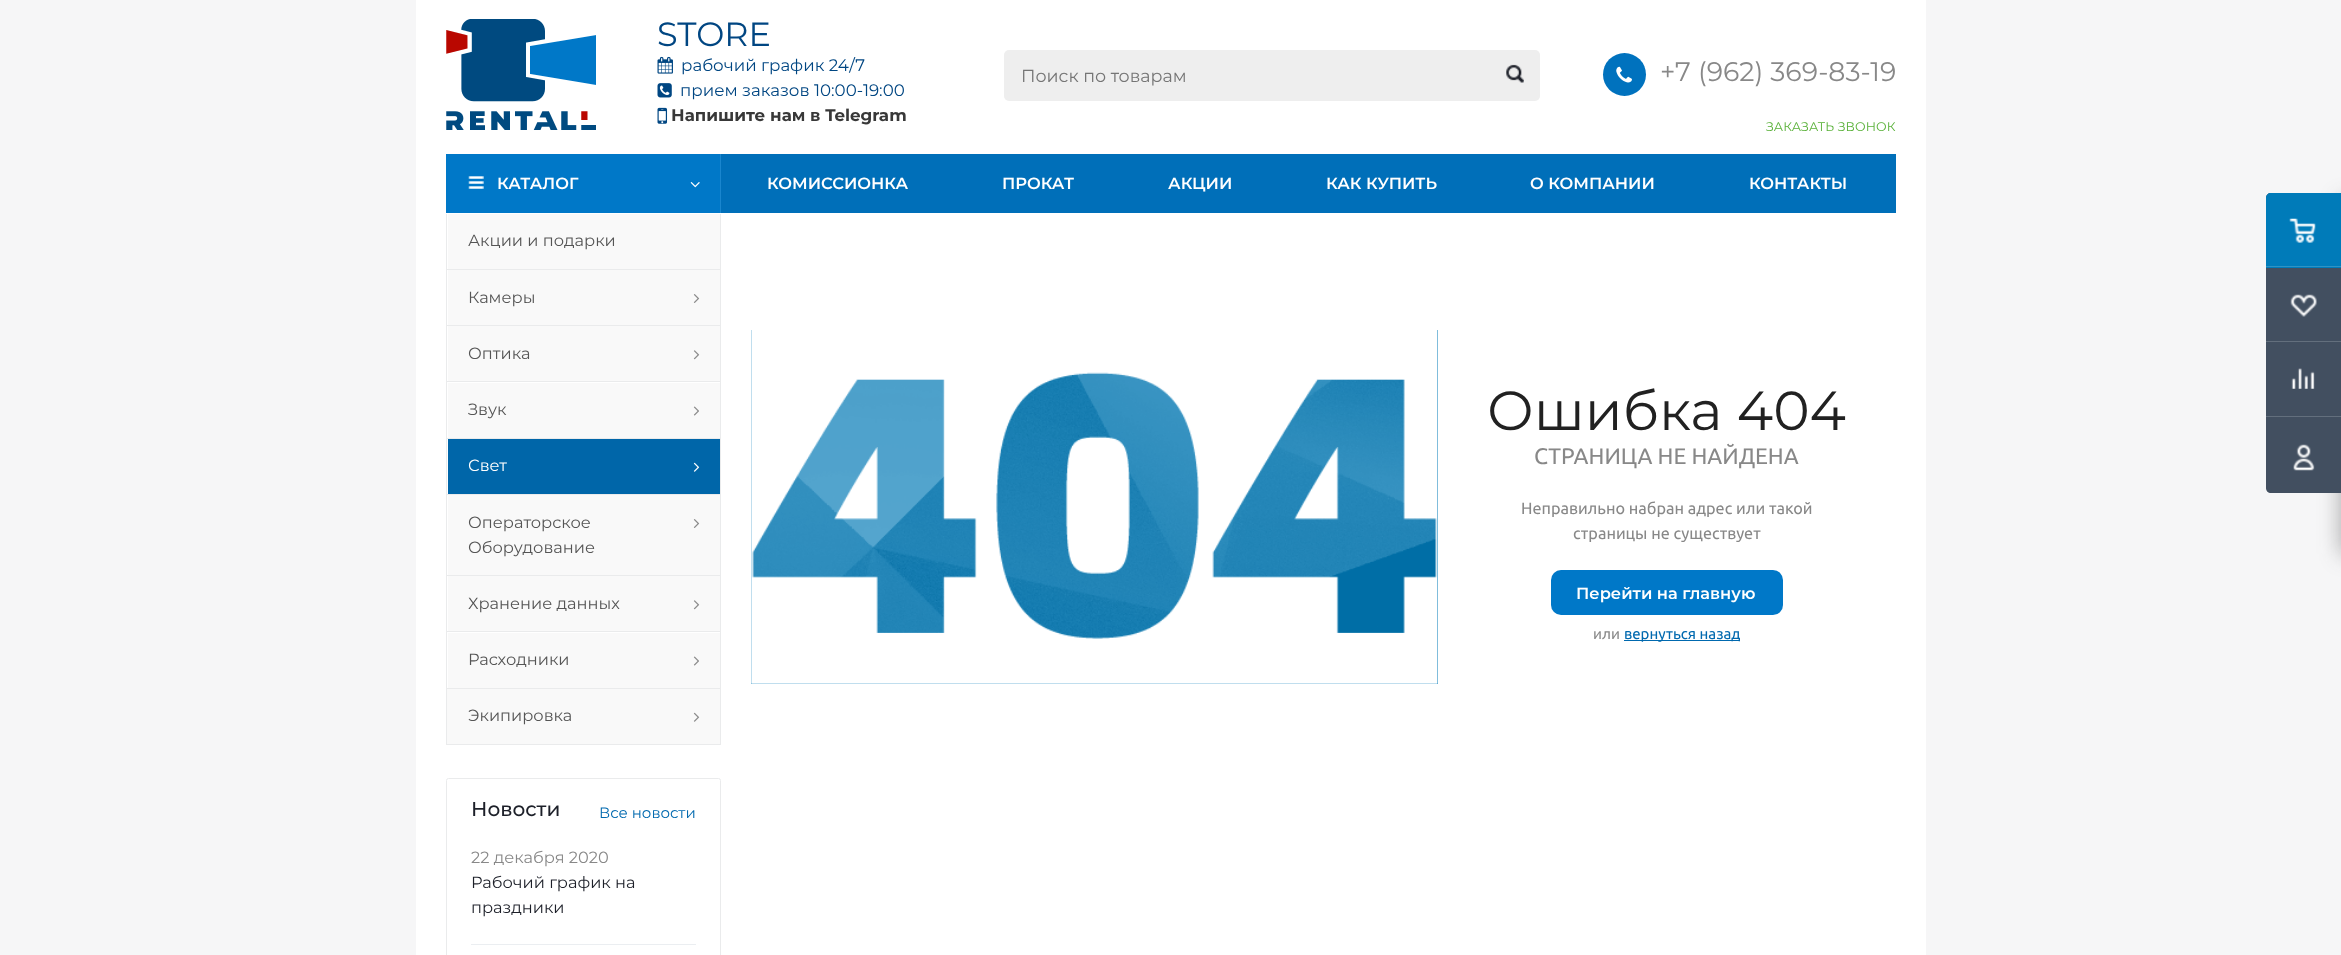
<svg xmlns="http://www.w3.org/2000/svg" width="2341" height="955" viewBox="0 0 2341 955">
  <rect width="100%" height="100%" fill="rgb(246,246,247)"/>
  <rect x="416" y="0" width="1510" height="955" fill="rgb(255,255,255)"/>
  <image x="446" y="19" width="150" height="111" href="pic1.png"/>
  <text x="657" y="46" font-family="Montserrat" font-size="33.5" fill="rgb(0,70,130)">STORE</text>
  <image x="657" y="56" width="16" height="18" href="pic2.png"/>
  <text x="681" y="71" font-family="Montserrat" font-size="16.7" fill="rgb(0,70,130)">рабочий график 24/7</text>
  <image x="657" y="83" width="15" height="15" href="pic3.png"/>
  <text x="680" y="96" font-family="Montserrat" font-size="16.7" fill="rgb(0,70,130)">прием заказов 10:00-19:00</text>
  <image x="657" y="107" width="11" height="17" href="pic4.png"/>
  <text x="671" y="121" font-family="Montserrat" font-size="16.7" font-weight="bold" fill="rgb(56,56,56)">Напишите нам в Telegram</text>
  <rect x="1004" y="50" width="536" height="51" rx="5" fill="rgb(238,238,238)"/>
  <text x="1021" y="82" font-family="Montserrat" font-size="17.5" fill="rgb(117,117,117)">Поиск по товарам</text>
  <image x="1506" y="64" width="18" height="19" href="pic5.png"/>
  <circle cx="1624.5" cy="74.5" r="21.5" fill="rgb(0,114,190)"/>
  <image x="1616" y="66" width="16" height="17" href="pic6.png"/>
  <text x="1660" y="81" font-family="Montserrat" font-size="26.75" fill="rgb(136,136,136)">+7 (962) 369-83-19</text>
  <text x="1766" y="131" font-family="Montserrat" font-size="12.5" letter-spacing="0.1" fill="rgb(87,176,54)">ЗАКАЗАТЬ ЗВОНОК</text>
  <rect x="2341" y="200" width="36" height="354" rx="2.5" fill="rgba(44,44,44,0.4)" filter="blur(11px)"/>
  <path d="M2271 193H2341V493H2271C2268 493 2266 491 2266 488V198C2266 195 2268 193 2271 193Z" fill="rgb(66,79,96)"/>
  <path d="M2271 193H2341V268H2266V198C2266 195 2268 193 2271 193Z" fill="rgb(0,123,185)"/>
  <image x="2289" y="218" width="27" height="25" href="pic7.png"/>
  <rect x="2266" y="266" width="75" height="1" fill="rgb(46,146,196)"/>
  <image x="2290" y="294" width="27" height="23" href="pic8.png"/>
  <rect x="2266" y="341" width="75" height="1" fill="rgb(99,111,125)"/>
  <image x="2291" y="368" width="24" height="21" href="pic9.png"/>
  <rect x="2266" y="416" width="75" height="1" fill="rgb(99,111,125)"/>
  <image x="2293" y="444" width="22" height="27" href="pic10.png"/>
  <rect x="721" y="154" width="1175" height="59" fill="rgb(0,111,185)"/>
  <rect x="446" y="154" width="274" height="59" fill="rgb(0,120,200)"/>
  <image x="468" y="176" width="16" height="13" href="pic11.png"/>
  <text x="497" y="189" font-family="Montserrat" font-size="16.25" font-weight="600" fill="rgb(255,255,255)">КАТАЛОГ</text>
  <rect x="720" y="154" width="1" height="59" fill="rgb(26,134,206)"/>
  <image x="690" y="182" width="10" height="6" href="pic12.png"/>
  <g font-family="Montserrat" font-size="16.25" font-weight="600" fill="rgb(255,255,255)">
    <text x="767" y="189">КОМИССИОНКА</text>
    <text x="1002" y="189">ПРОКАТ</text>
    <text x="1168" y="189">АКЦИИ</text>
    <text x="1326" y="189">КАК КУПИТЬ</text>
    <text x="1530" y="189">О КОМПАНИИ</text>
    <text x="1749" y="189">КОНТАКТЫ</text>
  </g>
  <rect x="448" y="214" width="272" height="55" fill="rgb(249,249,249)"/>
  <rect x="720" y="214" width="1" height="55" fill="rgb(234,235,236)"/>
  <rect x="446" y="214" width="1" height="55" fill="rgb(234,235,236)"/>
  <text x="468" y="246" font-family="Montserrat" font-size="16.25" fill="rgb(85,85,85)">Акции и подарки</text>
  <rect x="448" y="270" width="272" height="55" fill="rgb(249,249,249)"/>
  <rect x="446" y="269" width="275" height="1" fill="rgb(234,235,236)"/>
  <rect x="720" y="269" width="1" height="56" fill="rgb(234,235,236)"/>
  <rect x="446" y="269" width="1" height="56" fill="rgb(234,235,236)"/>
  <text x="468" y="303" font-family="Montserrat" font-size="16.25" fill="rgb(85,85,85)">Камеры</text>
  <image x="693" y="294" width="7" height="9" href="pic13.png"/>
  <rect x="448" y="326" width="272" height="55" fill="rgb(249,249,249)"/>
  <rect x="446" y="325" width="275" height="1" fill="rgb(234,235,236)"/>
  <rect x="720" y="325" width="1" height="56" fill="rgb(234,235,236)"/>
  <rect x="446" y="325" width="1" height="56" fill="rgb(234,235,236)"/>
  <text x="468" y="359" font-family="Montserrat" font-size="16.25" fill="rgb(85,85,85)">Оптика</text>
  <image x="693" y="350" width="7" height="10" href="pic14.png"/>
  <rect x="448" y="383" width="272" height="55" fill="rgb(249,249,249)"/>
  <rect x="446" y="381" width="275" height="1" fill="rgb(234,235,236)"/>
  <rect x="720" y="381" width="1" height="57" fill="rgb(234,235,236)"/>
  <rect x="446" y="381" width="1" height="57" fill="rgb(234,235,236)"/>
  <text x="468" y="415" font-family="Montserrat" font-size="16.25" fill="rgb(85,85,85)">Звук</text>
  <image x="693" y="406" width="6" height="10" href="pic15.png"/>
  <rect x="448" y="439" width="272" height="55" fill="rgb(0,102,169)"/>
  <rect x="446" y="438" width="275" height="1" fill="rgb(234,235,236)"/>
  <rect x="720" y="438" width="1" height="56" fill="rgb(234,235,236)"/>
  <rect x="446" y="438" width="1" height="56" fill="rgb(234,235,236)"/>
  <text x="468" y="471" font-family="Montserrat" font-size="16.25" fill="rgb(255,255,255)">Свет</text>
  <image x="693" y="462" width="7" height="10" href="pic16.png"/>
  <rect x="448" y="495" width="272" height="80" fill="rgb(249,249,249)"/>
  <rect x="446" y="494" width="275" height="1" fill="rgb(234,235,236)"/>
  <rect x="720" y="494" width="1" height="81" fill="rgb(234,235,236)"/>
  <rect x="446" y="494" width="1" height="81" fill="rgb(234,235,236)"/>
  <text x="468" y="528" font-family="Montserrat" font-size="16.25" fill="rgb(85,85,85)">Операторское</text>
  <image x="693" y="519" width="7" height="9" href="pic13.png"/>
  <text x="468" y="553" font-family="Montserrat" font-size="16.25" fill="rgb(85,85,85)">Оборудование</text>
  <rect x="448" y="576" width="272" height="55" fill="rgb(249,249,249)"/>
  <rect x="446" y="575" width="275" height="1" fill="rgb(234,235,236)"/>
  <rect x="720" y="575" width="1" height="56" fill="rgb(234,235,236)"/>
  <rect x="446" y="575" width="1" height="56" fill="rgb(234,235,236)"/>
  <text x="468" y="609" font-family="Montserrat" font-size="16.25" fill="rgb(85,85,85)">Хранение данных</text>
  <image x="693" y="600" width="7" height="10" href="pic14.png"/>
  <rect x="448" y="633" width="272" height="55" fill="rgb(249,249,249)"/>
  <rect x="446" y="631" width="275" height="1" fill="rgb(234,235,236)"/>
  <rect x="720" y="631" width="1" height="57" fill="rgb(234,235,236)"/>
  <rect x="446" y="631" width="1" height="57" fill="rgb(234,235,236)"/>
  <text x="468" y="665" font-family="Montserrat" font-size="16.25" fill="rgb(85,85,85)">Расходники</text>
  <image x="693" y="656" width="6" height="10" href="pic15.png"/>
  <rect x="446.5" y="688.5" width="274" height="56" fill="rgb(249,249,249)" stroke="rgb(234,235,236)"/>
  <text x="468" y="721" font-family="Montserrat" font-size="16.25" fill="rgb(85,85,85)">Экипировка</text>
  <image x="693" y="712" width="7" height="10" href="pic17.png"/>
  <rect x="446.5" y="778.5" width="274" height="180" rx="2" fill="none" stroke="rgb(234,235,236)"/>
  <text x="471" y="816" font-family="Montserrat" font-size="20" font-weight="500" fill="rgb(29,32,41)">Новости</text>
  <text x="599" y="818" font-family="Montserrat" font-size="15" fill="rgb(0,105,175)">Все новости</text>
  <rect x="471" y="944" width="225" height="1" fill="rgb(235,238,241)"/>
  <text x="471" y="863" font-family="Montserrat" font-size="16.25" fill="rgb(136,136,136)">22 декабря 2020</text>
  <g font-family="Montserrat" font-size="16.25" fill="rgb(29,32,41)">
    <text>
      <tspan x="471" y="888">Рабочий график на</tspan>
      <tspan x="471" y="913">праздники</tspan>
    </text>
  </g>
  <rect x="751" y="330" width="687" height="354" fill="rgb(0,123,185)"/>
  <image x="751" y="330" width="687" height="354" href="pic18.png"/>
  <text x="1487" y="430" font-family="Montserrat" font-size="55" fill="rgb(33,33,33)">Ошибка 404</text>
  <text x="1534" y="464" font-family="Ubuntu" font-size="22.5" fill="rgb(136,136,136)">СТРАНИЦА НЕ НАЙДЕНА</text>
  <g font-family="Ubuntu" font-size="16.25" fill="rgb(136,136,136)">
    <text x="1521" y="514">Неправильно набран адрес или такой</text>
    <text x="1573" y="539">страницы не существует</text>
  </g>
  <rect x="1551" y="570" width="232" height="45" rx="10" fill="rgb(0,120,200)"/>
  <text x="1576" y="599" font-family="Montserrat" font-size="16.25" font-weight="600" fill="rgb(255,255,255)">Перейти на главную</text>
  <text x="1593" y="639" font-family="Ubuntu" font-size="15" fill="rgb(136,136,136)">или</text>
  <rect x="1624" y="640" width="116" height="1" fill="rgb(0,105,175)"/>
  <text x="1624" y="639" font-family="Ubuntu" font-size="15" fill="rgb(0,105,175)">вернуться назад</text>
</svg>
